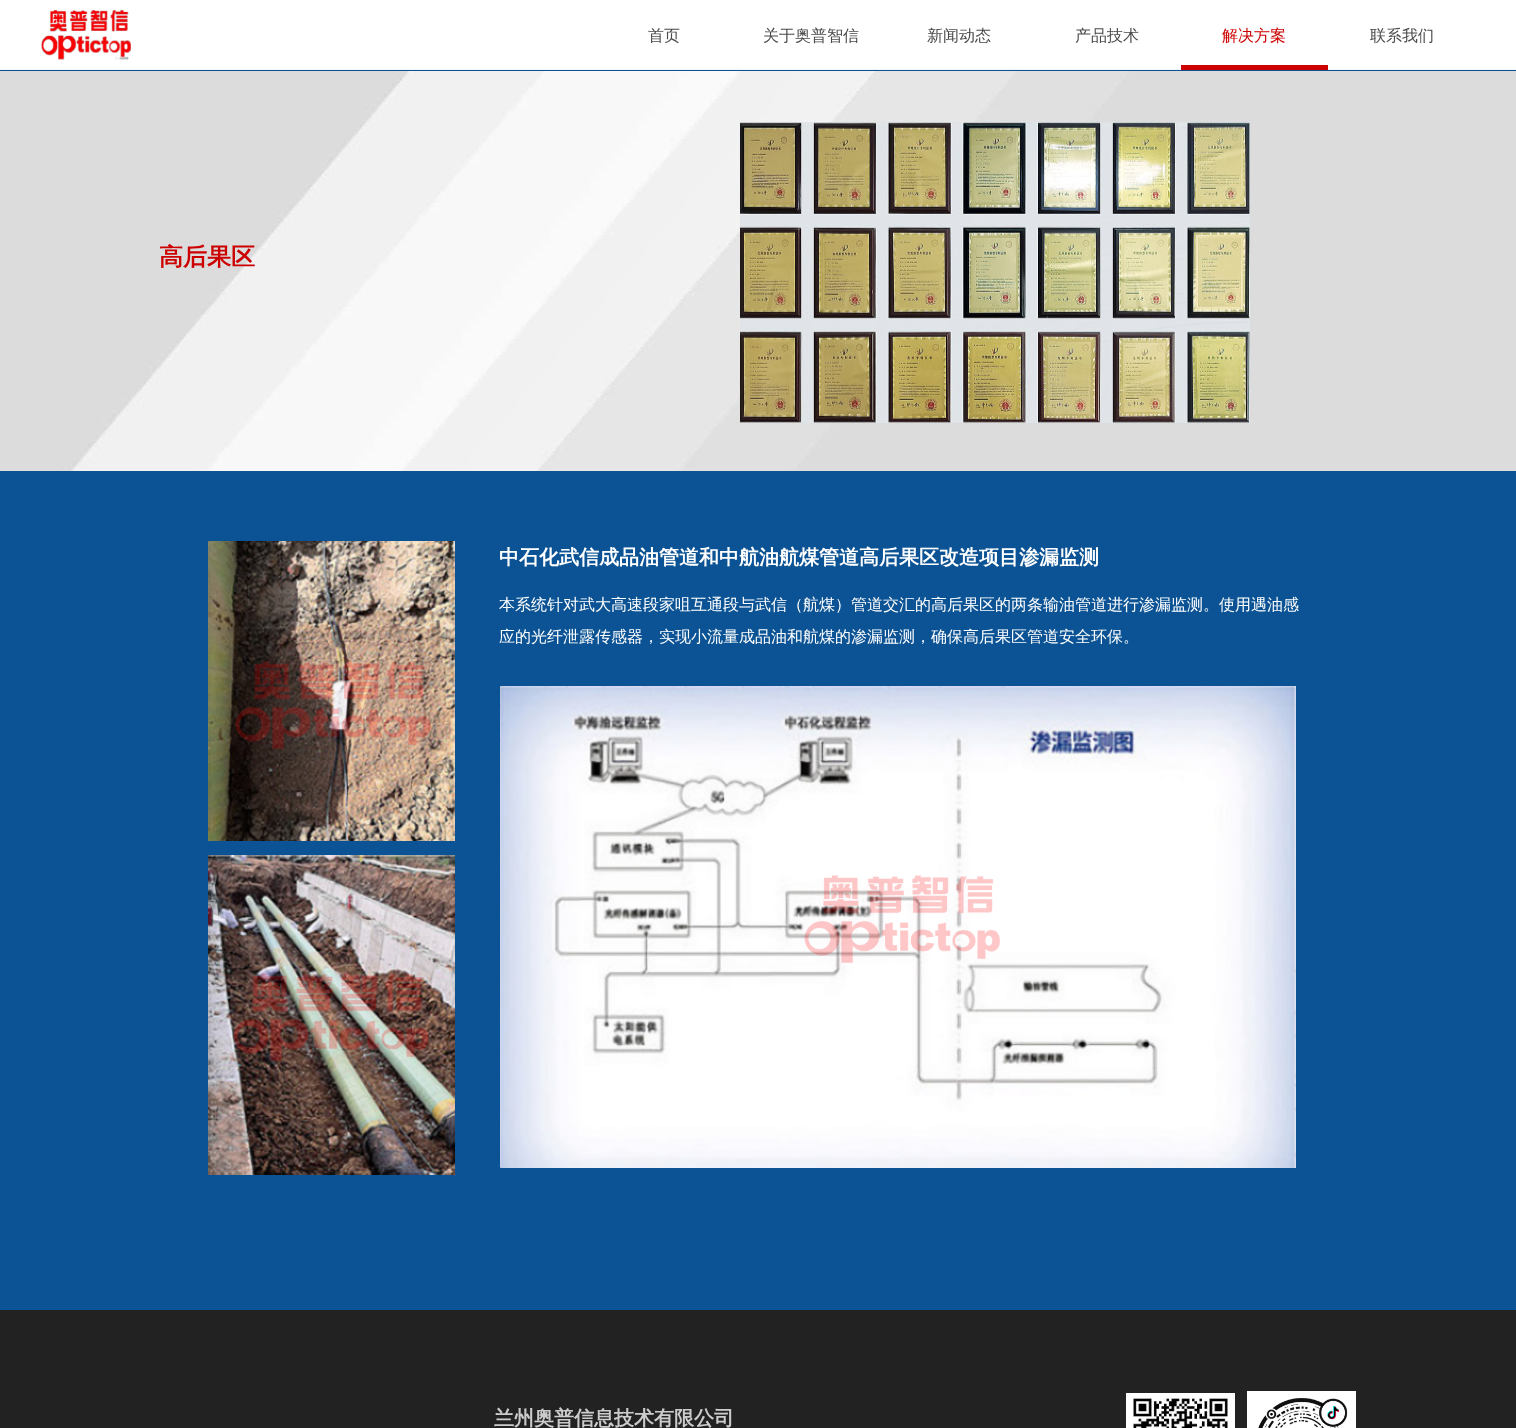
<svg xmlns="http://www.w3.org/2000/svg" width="1516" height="1428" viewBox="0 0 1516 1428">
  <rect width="100%" height="100%" fill="rgb(255,255,255)"/>
  <image x="41" y="10" width="90" height="50" href="pic1.png"/>
  <g font-family="WenQuanYi Zen Hei" font-size="16" font-weight="500" fill="rgb(74,74,74)">
    <text x="648" y="41">首页</text>
    <text x="763" y="41">关于奥普智信</text>
    <text x="927" y="41">新闻动态</text>
    <text x="1075" y="41">产品技术</text>
  </g>
  <text x="1222" y="41" font-family="WenQuanYi Zen Hei" font-size="16" font-weight="500" fill="rgb(204,0,0)">解决方案</text>
  <rect x="0" y="69" width="1516" height="1" fill="rgb(245,245,245)"/>
  <rect x="1181" y="65" width="147" height="5" fill="rgb(204,0,0)"/>
  <text x="1370" y="41" font-family="WenQuanYi Zen Hei" font-size="16" font-weight="500" fill="rgb(74,74,74)">联系我们</text>
  <rect x="0" y="70" width="1516" height="1240" fill="rgb(11,83,148)"/>
  <image x="0" y="71" width="1516" height="400" href="pic2.png"/>
  <text x="159" y="265" font-family="WenQuanYi Zen Hei" font-size="24" font-weight="bold" fill="rgb(204,0,0)">高后果区</text>
  <image x="208" y="541" width="247" height="300" href="pic3.png"/>
  <text x="499" y="564" font-family="WenQuanYi Zen Hei" font-size="20" font-weight="bold" fill="rgb(255,255,255)">中石化武信成品油管道和中航油航煤管道高后果区改造项目渗漏监测</text>
  <g font-family="WenQuanYi Zen Hei" font-size="16" font-weight="500" fill="rgb(255,255,255)">
    <text x="499" y="610">本系统针对武大高速段家咀互通段与武信（航煤）管道交汇的高后果区的两条输油管道进行渗漏监测。使用遇油感</text>
    <text x="499" y="642">应的光纤泄露传感器，实现小流量成品油和航煤的渗漏监测，确保高后果区管道安全环保。</text>
  </g>
  <image x="235" y="661" width="196" height="88" href="pic4.png"/>
  <image x="500" y="686" width="796" height="482" href="pic5.png"/>
  <image x="208" y="855" width="247" height="320" href="pic6.png"/>
  <image x="804" y="875" width="196" height="88" href="pic7.png"/>
  <image x="233" y="973" width="196" height="88" href="pic8.png"/>
  <rect x="0" y="1310" width="1516" height="118" fill="rgb(34,34,34)"/>
  <text x="494" y="1425" font-family="WenQuanYi Zen Hei" font-size="20" font-weight="bold" fill="rgb(204,204,204)">兰州奥普信息技术有限公司</text>
  <image x="1126" y="1393" width="109" height="35" href="pic9.png"/>
  <image x="1247" y="1391" width="109" height="37" href="pic10.png"/>
</svg>
